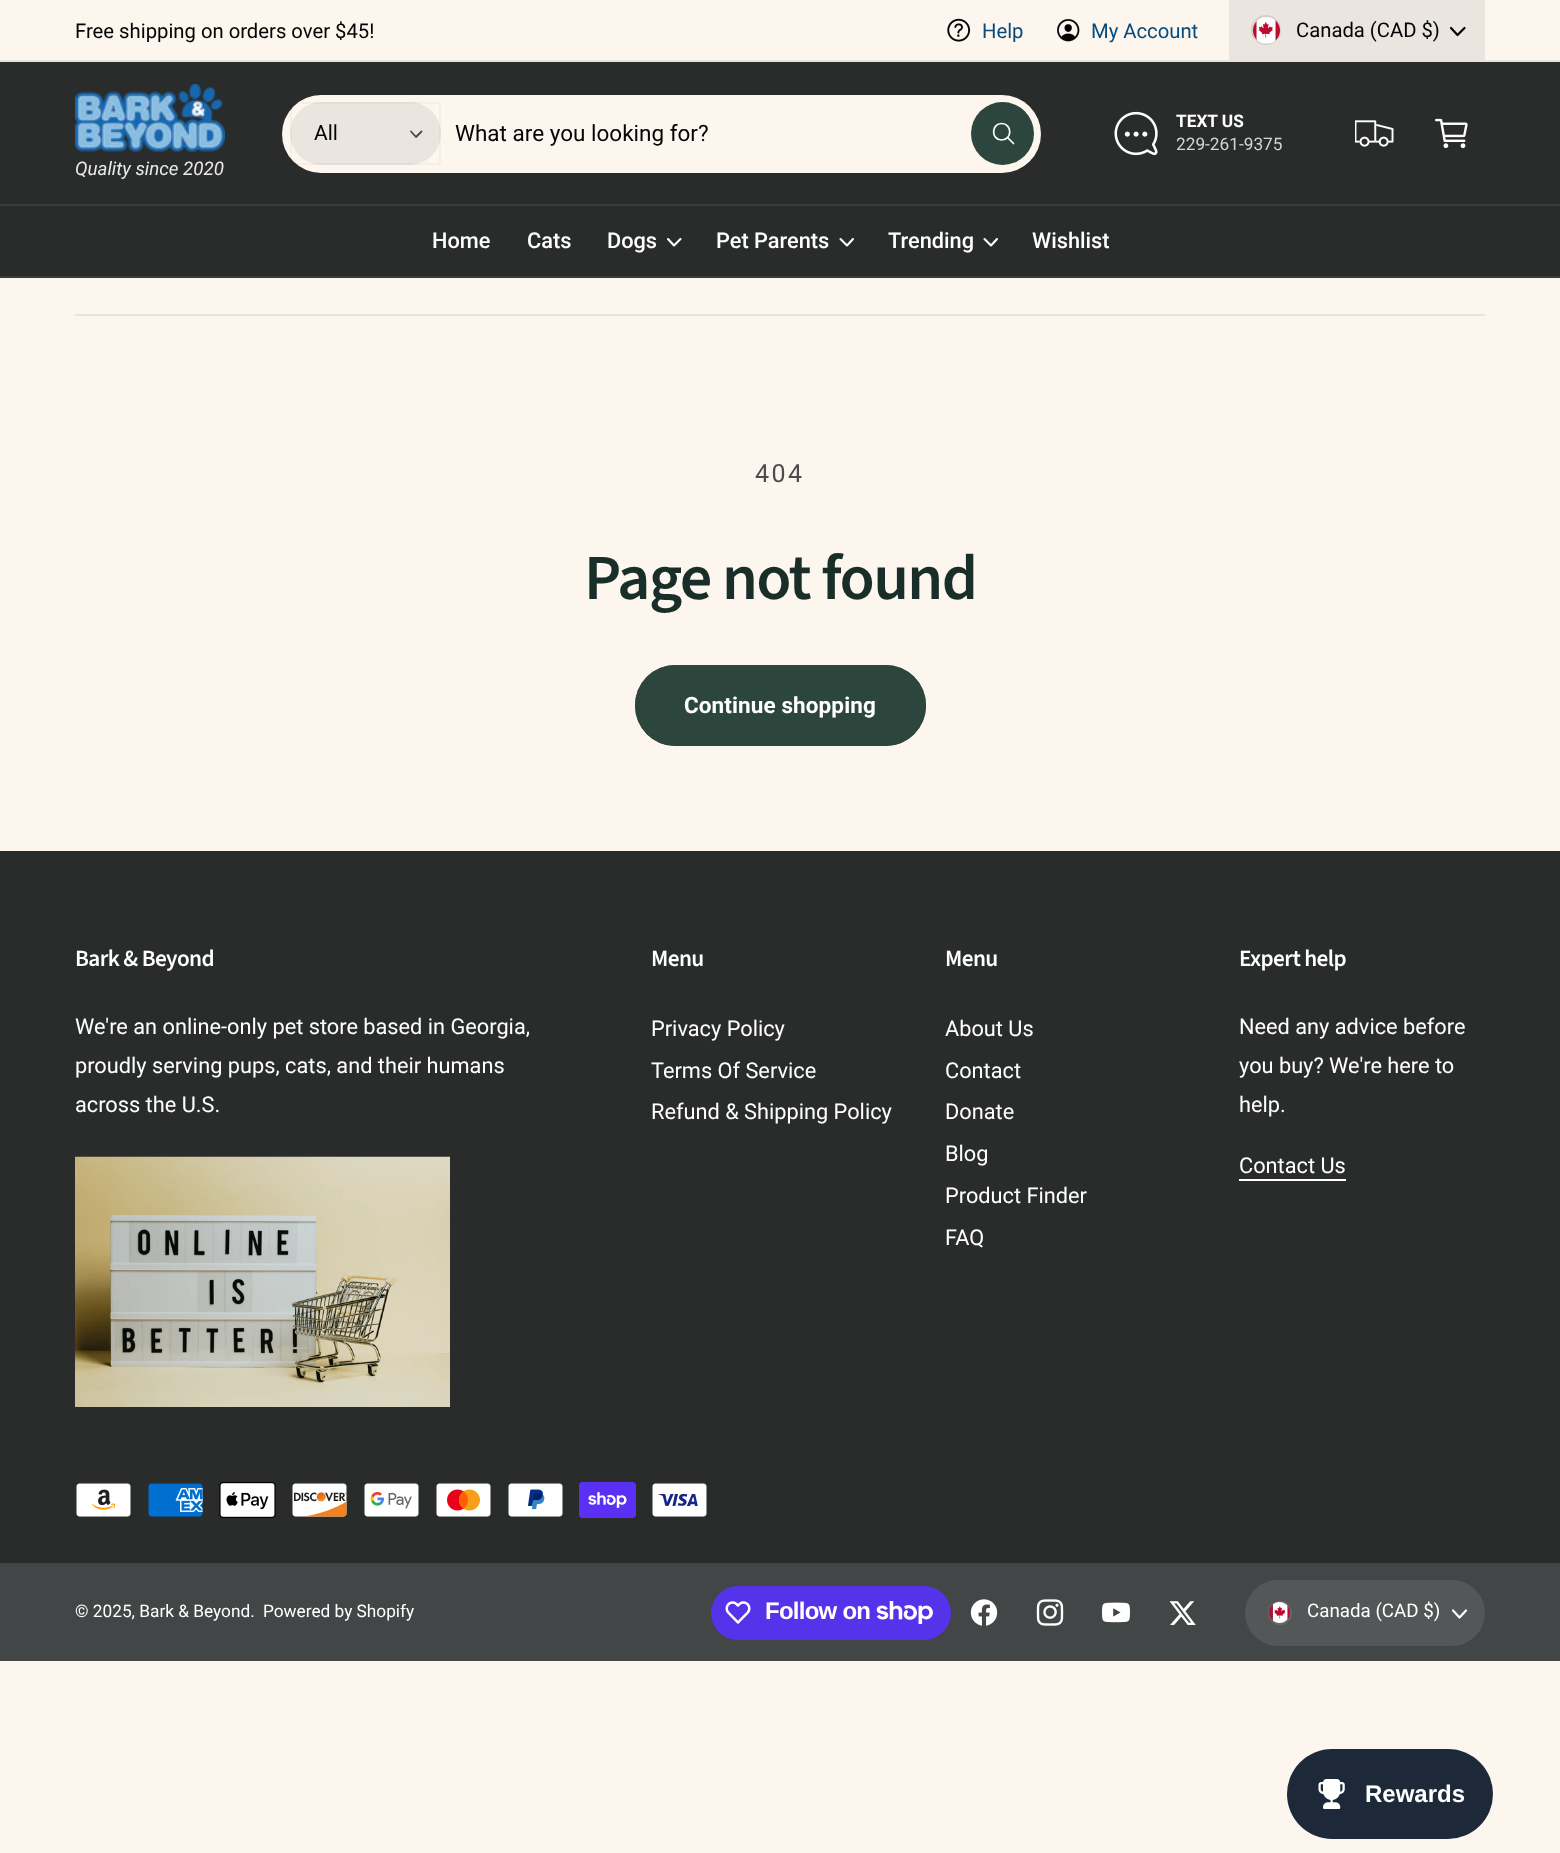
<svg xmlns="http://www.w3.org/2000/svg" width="1560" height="1853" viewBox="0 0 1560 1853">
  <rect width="100%" height="100%" fill="rgb(252,246,239)"/>
  <rect x="0" y="60" width="1560" height="2" fill="rgb(232,227,220)"/>
  <text x="75" y="38" font-family="Roboto" font-size="20.25" fill="rgb(4,4,4)">Free shipping on orders over $45!</text>
  <image x="947" y="18" width="24" height="24" href="pic1.png"/>
  <text x="982" y="38" font-family="Roboto" font-size="20.25" fill="rgb(7,75,124)">Help</text>
  <image x="1057" y="19" width="23" height="23" href="pic2.png"/>
  <text x="1091" y="38" font-family="Roboto" font-size="20.25" fill="rgb(7,75,124)">My Account</text>
  <rect x="1229" y="0" width="256" height="60" fill="rgb(235,229,223)"/>
  <circle cx="1266" cy="30" r="14" fill="none" stroke="rgb(212,206,201)" stroke-width="2"/>
  <image x="1253" y="17" width="27" height="27" href="pic3.png"/>
  <text x="1296" y="37" font-family="Roboto" font-size="20.25" fill="rgb(4,4,4)">Canada (CAD $)</text>
  <path d="M1451 28L1457.5 35L1464.5 28" fill="none" stroke="rgb(4,4,4)" stroke-width="2.2" stroke-linecap="round" stroke-linejoin="round"/>
  <rect x="0" y="62" width="1560" height="214" fill="rgb(42,44,44)"/>
  <rect x="282" y="95" width="759" height="78" rx="39" fill="rgb(252,246,239)"/>
  <rect x="290" y="102" width="151" height="63" rx="31.5" fill="rgb(235,229,223)"/>
  <rect x="291" y="103" width="149" height="61" fill="none" stroke="rgba(4,4,4,0.03)" stroke-width="2"/>
  <text x="314" y="140" font-family="Roboto" font-size="21" fill="rgb(4,4,4)">All</text>
  <path d="M411 131.5L416 137L421.5 131.5" fill="none" stroke="rgb(73,72,70)" stroke-width="1.8" stroke-linecap="round" stroke-linejoin="round"/>
  <text x="455" y="141" font-family="Roboto" font-size="22.5" fill="rgb(4,4,4)">What are you looking for?</text>
  <circle cx="1002.5" cy="133.5" r="31.5" fill="rgb(44,70,61)"/>
  <path d="M1001.5 123.5C991 123.5 991 140 1001.5 140C1012.5 140 1012.5 123.5 1001.5 123.5Z" fill="none" stroke="rgb(255,255,255)" stroke-width="1.7"/>
  <path d="M1008 138L1013.5 143.5" fill="none" stroke="rgb(255,255,255)" stroke-width="1.7" stroke-linecap="round"/>
  <image x="1114" y="111" width="44" height="45" href="pic4.png"/>
  <text x="1176" y="127" font-family="Roboto" font-size="17.25" font-weight="bold" fill="rgb(255,255,255)">TEXT US</text>
  <text x="1176" y="150" font-family="Roboto" font-size="17.25" fill="rgb(212,213,213)">229-261-9375</text>
  <image x="1355" y="120" width="39" height="27" href="pic5.png"/>
  <image x="1435" y="118" width="33" height="31" href="pic6.png"/>
  <image x="75" y="84" width="150" height="68" href="pic7.png"/>
  <text x="75" y="175" font-family="Roboto" font-size="18.75" font-style="italic" fill="rgb(234,234,234)">Quality since 2020</text>
  <rect x="0" y="204" width="1560" height="2" fill="rgb(59,61,61)"/>
  <rect x="0" y="276" width="1560" height="2" fill="rgb(59,61,61)"/>
  <g font-family="Roboto" font-size="21.75" font-weight="500" fill="rgb(255,255,255)">
    <text x="432" y="248">Home</text>
    <text x="527" y="248">Cats</text>
    <text x="607" y="248">Dogs</text>
  </g>
  <path d="M668 239L674 245.5L680.5 239" fill="none" stroke="rgb(255,255,255)" stroke-width="2.1" stroke-linecap="round" stroke-linejoin="round"/>
  <text x="716" y="248" font-family="Roboto" font-size="21.75" font-weight="500" fill="rgb(255,255,255)">Pet Parents</text>
  <path d="M840.5 239L847 245.5L853 239" fill="none" stroke="rgb(255,255,255)" stroke-width="2.1" stroke-linecap="round" stroke-linejoin="round"/>
  <text x="888" y="248" font-family="Roboto" font-size="21.75" font-weight="500" fill="rgb(255,255,255)">Trending</text>
  <path d="M984.5 239L991 245.5L997 239" fill="none" stroke="rgb(255,255,255)" stroke-width="2.1" stroke-linecap="round" stroke-linejoin="round"/>
  <text x="1032" y="248" font-family="Roboto" font-size="21.75" font-weight="500" fill="rgb(255,255,255)">Wishlist</text>
  <rect x="75" y="314" width="1410" height="2" fill="rgb(232,227,220)"/>
  <text x="755" y="482" font-family="Roboto" font-size="25" letter-spacing="2.5" fill="rgb(78,77,75)">404</text>
  <text x="584" y="599" font-family="Source Sans Pro" font-size="64.25" font-weight="600" letter-spacing="-1.6" fill="rgb(25,46,40)">Page not found</text>
  <rect x="635" y="665" width="291" height="81" rx="40.5" fill="rgb(44,70,61)"/>
  <rect x="636.5" y="666.5" width="288" height="78" rx="39" fill="none" stroke="rgb(44,70,61)" stroke-width="3"/>
  <text x="684" y="713" font-family="Roboto" font-size="22.5" font-weight="bold" letter-spacing="0.1" fill="rgb(255,255,255)">Continue shopping</text>
  <rect x="0" y="851" width="1560" height="712" fill="rgb(42,44,44)"/>
  <text x="75" y="966" font-family="Source Sans Pro" font-size="23.25" font-weight="600" letter-spacing="-0.6" fill="rgb(255,255,255)">Bark &amp; Beyond</text>
  <g font-family="Roboto" font-size="21.75" fill="rgb(255,255,255)">
    <text>
      <tspan x="75" y="1034">We're an online-only pet store based in Georgia,</tspan>
      <tspan x="75" y="1073">proudly serving pups, cats, and their humans</tspan>
      <tspan x="75" y="1112">across the U.S.</tspan>
    </text>
  </g>
  <image x="75" y="1156" width="375" height="251" href="pic8.png"/>
  <text x="651" y="966" font-family="Source Sans Pro" font-size="23.25" font-weight="600" letter-spacing="-0.6" fill="rgb(255,255,255)">Menu</text>
  <g font-family="Roboto" font-size="21.75" fill="rgb(255,255,255)">
    <text>
      <tspan x="651" y="1036">Privacy Policy</tspan>
      <tspan x="651" y="1078">Terms Of Service</tspan>
      <tspan x="651" y="1119">Refund &amp; Shipping Policy</tspan>
    </text>
  </g>
  <text x="945" y="966" font-family="Source Sans Pro" font-size="23.25" font-weight="600" letter-spacing="-0.6" fill="rgb(255,255,255)">Menu</text>
  <g font-family="Roboto" font-size="21.75" fill="rgb(255,255,255)">
    <text>
      <tspan x="945" y="1036">About Us</tspan>
      <tspan x="945" y="1078">Contact</tspan>
      <tspan x="945" y="1119">Donate</tspan>
      <tspan x="945" y="1161">Blog</tspan>
      <tspan x="945" y="1203">Product Finder</tspan>
      <tspan x="945" y="1245">FAQ</tspan>
    </text>
  </g>
  <text x="1239" y="966" font-family="Source Sans Pro" font-size="23.25" font-weight="600" letter-spacing="-0.6" fill="rgb(255,255,255)">Expert help</text>
  <g font-family="Roboto" font-size="21.75" fill="rgb(255,255,255)">
    <text>
      <tspan x="1239" y="1034">Need any advice before</tspan>
      <tspan x="1239" y="1073">you buy? We're here to</tspan>
      <tspan x="1239" y="1112">help.</tspan>
    </text>
    <text x="1239" y="1173">Contact Us</text>
  </g>
  <rect x="1239" y="1179" width="107" height="2" fill="rgb(255,255,255)"/>
  <image x="76" y="1483" width="55" height="34" href="pic9.png"/>
  <image x="148" y="1483" width="55" height="34" href="pic10.png"/>
  <image x="219" y="1482" width="57" height="36" href="pic11.png"/>
  <image x="292" y="1483" width="55" height="34" href="pic12.png"/>
  <image x="364" y="1483" width="55" height="34" href="pic13.png"/>
  <image x="436" y="1483" width="55" height="34" href="pic14.png"/>
  <image x="508" y="1483" width="55" height="34" href="pic15.png"/>
  <image x="579" y="1482" width="57" height="36" href="pic16.png"/>
  <image x="652" y="1483" width="55" height="34" href="pic17.png"/>
  <rect x="0" y="1563" width="1560" height="98" fill="rgb(67,70,70)"/>
  <g font-family="Roboto" font-size="17.25" fill="rgb(255,255,255)">
    <text x="75" y="1617">© 2025, Bark &amp; Beyond.</text>
    <text x="263" y="1617">Powered by Shopify</text>
  </g>
  <rect x="711" y="1586" width="240" height="54" rx="27" fill="rgb(84,51,235)"/>
  <image x="725" y="1601" width="26" height="23" href="pic18.png"/>
  <text x="765" y="1619" font-family="Liberation Sans" font-size="24" font-weight="bold" letter-spacing="-0.75" fill="rgb(255,255,255)">Follow on</text>
  <image x="876" y="1601" width="57" height="23" href="pic19.png"/>
  <image x="970" y="1599" width="28" height="27" href="pic20.png"/>
  <image x="1036" y="1599" width="28" height="27" href="pic21.png"/>
  <image x="1102" y="1602" width="28" height="21" href="pic22.png"/>
  <image x="1169" y="1601" width="27" height="24" href="pic23.png"/>
  <rect x="1245" y="1580" width="240" height="66" rx="33" fill="rgb(84,87,87)"/>
  <circle cx="1280" cy="1613" r="11" fill="none" stroke="rgb(101,104,104)" stroke-width="2"/>
  <image x="1269" y="1602" width="21" height="21" href="pic24.png"/>
  <text x="1307" y="1617" font-family="Roboto" font-size="18.75" fill="rgb(255,255,255)">Canada (CAD $)</text>
  <path d="M1453 1610.5L1459.5 1617.5L1466 1610.5" fill="none" stroke="rgb(255,255,255)" stroke-width="2.2" stroke-linecap="round" stroke-linejoin="round"/>
  <rect x="1287" y="1749" width="206" height="90" rx="45" fill="rgb(29,41,57)"/>
  <image x="1318" y="1779" width="27" height="30" href="pic25.png"/>
  <text x="1365" y="1802" font-family="Liberation Sans" font-size="24" font-weight="bold" fill="rgb(255,255,255)">Rewards</text>
</svg>
